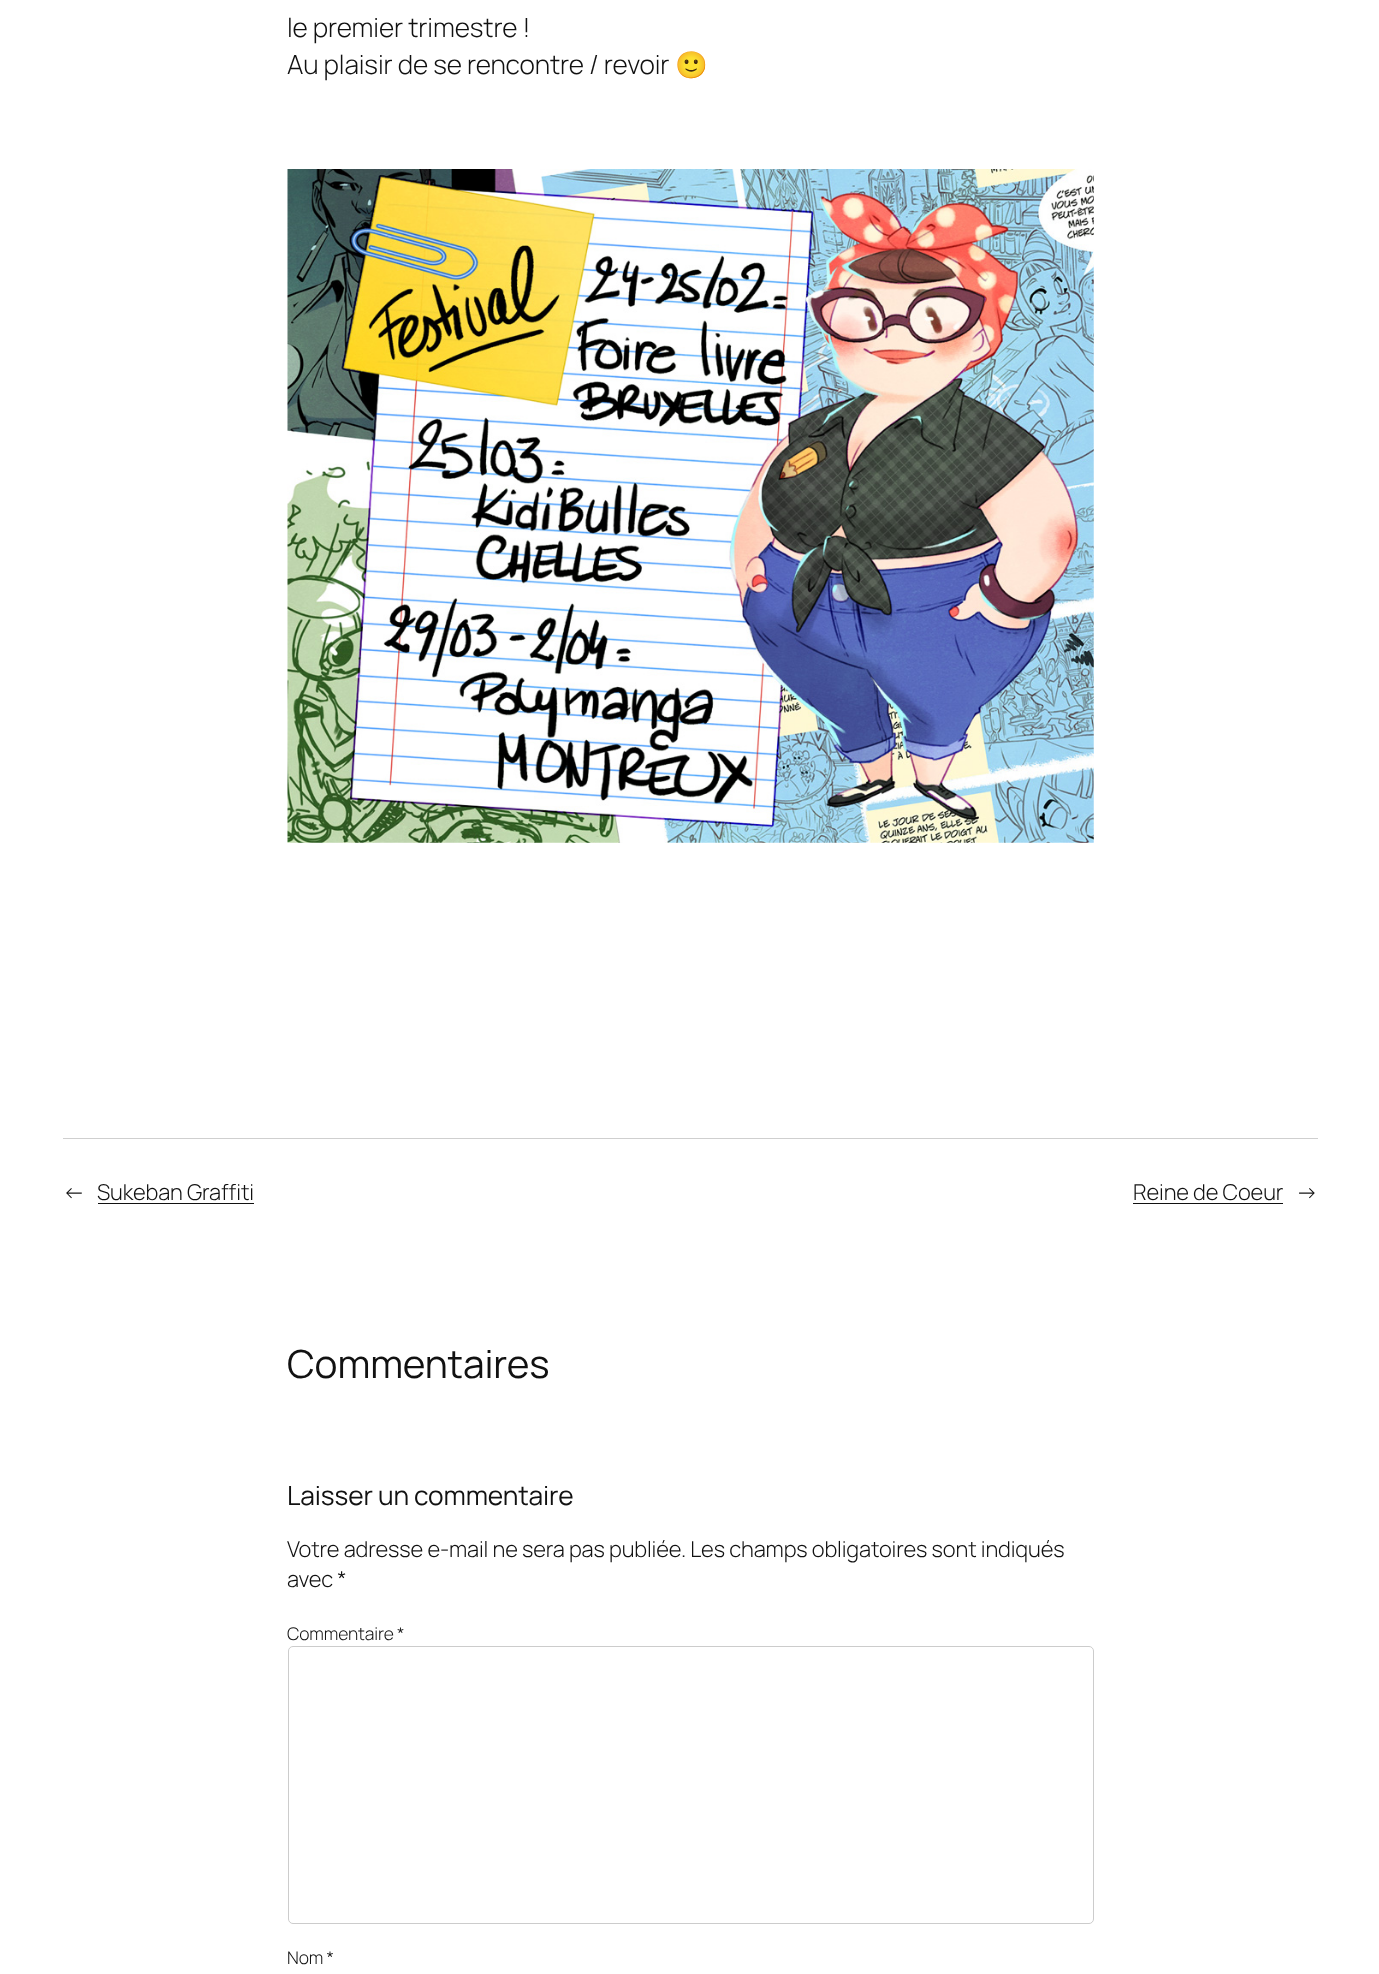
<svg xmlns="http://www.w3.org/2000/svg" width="1379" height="1974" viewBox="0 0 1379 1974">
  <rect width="100%" height="100%" fill="rgb(255,255,255)"/>
  <g font-family="Manrope" font-size="26.3" font-weight="300" letter-spacing="-0.12" fill="rgb(17,17,17)">
    <text>
      <tspan x="287" y="37">le premier trimestre !</tspan>
      <tspan x="287" y="74">Au plaisir de se rencontre / revoir</tspan>
    </text>
  </g>
  <text x="675" y="74" font-family="Noto Color Emoji" font-size="26.3" letter-spacing="-0.12" fill="rgb(17,17,17)">🙂</text>
  <image x="287" y="169" width="807" height="674" href="pic1.png"/>
  <rect x="63" y="1138" width="1255" height="1" fill="rgb(207,207,207)"/>
  <g font-family="Manrope" font-size="21.9" font-weight="300" letter-spacing="-0.12" fill="rgb(17,17,17)">
    <text x="63" y="1200">←</text>
    <text x="97" y="1200">Sukeban Graffiti</text>
  </g>
  <rect x="98" y="1203" width="156" height="1" fill="rgb(17,17,17)"/>
  <text x="1133" y="1200" font-family="Manrope" font-size="21.9" font-weight="300" letter-spacing="-0.12" fill="rgb(17,17,17)">Reine de Coeur</text>
  <rect x="1133" y="1203" width="150" height="1" fill="rgb(17,17,17)"/>
  <text x="1296" y="1200" font-family="Manrope" font-size="21.9" font-weight="300" letter-spacing="-0.12" fill="rgb(17,17,17)">→</text>
  <text x="287" y="1378" font-family="Manrope" font-size="38.75" letter-spacing="-0.12" fill="rgb(17,17,17)">Commentaires</text>
  <text x="287" y="1505" font-family="Manrope" font-size="26.3" letter-spacing="-0.12" fill="rgb(17,17,17)">Laisser un commentaire</text>
  <g font-family="Manrope" font-size="21.9" font-weight="300" letter-spacing="-0.12" fill="rgb(17,17,17)">
    <text>
      <tspan x="287" y="1557">Votre adresse e-mail ne sera pas publiée. Les champs obligatoires sont indiqués</tspan>
      <tspan x="287" y="1587">avec *</tspan>
    </text>
  </g>
  <text x="287" y="1640" font-family="Manrope" font-size="17.5" font-weight="300" letter-spacing="-0.12" fill="rgb(17,17,17)">Commentaire *</text>
  <rect x="288.5" y="1646.5" width="805" height="277" rx="4.5" fill="none" stroke="rgb(204,204,204)"/>
  <text x="287" y="1964" font-family="Manrope" font-size="17.5" font-weight="300" letter-spacing="-0.12" fill="rgb(17,17,17)">Nom *</text>
</svg>
